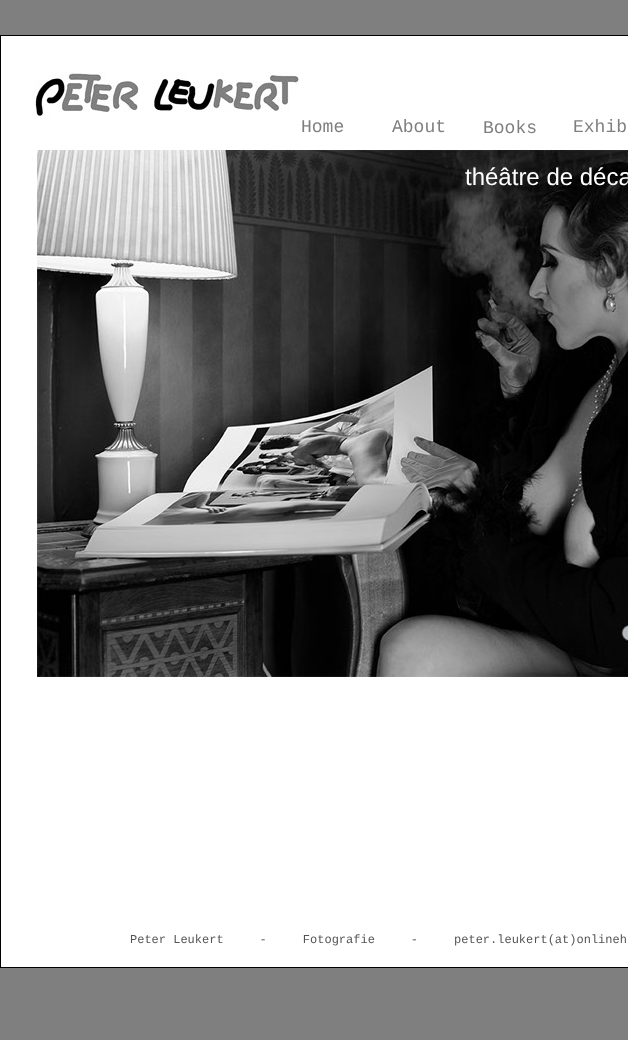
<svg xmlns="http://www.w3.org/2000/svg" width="628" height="1040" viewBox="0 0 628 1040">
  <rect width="100%" height="100%" fill="rgb(127,127,127)"/>
  <rect x="0.5" y="35.5" width="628" height="932" fill="rgb(255,255,255)" stroke="rgb(0,0,0)"/>
  <image x="34" y="72" width="266" height="45" href="pic1.png"/>
  <g font-family="Liberation Mono" font-size="18" fill="rgb(127,127,127)">
    <text x="301" y="132">Home</text>
    <text x="392" y="132">About</text>
    <text x="483" y="133">Books</text>
    <text x="573" y="132">Exhib</text>
  </g>
  <image x="37" y="150" width="591" height="527" href="pic2.png"/>
  <text x="465" y="185" font-family="Liberation Sans" font-size="24" fill="rgb(255,255,255)">théâtre de déca</text>
  <text x="130" y="943" font-family="Liberation Mono" font-size="12" fill="rgb(86,83,83)" xml:space="preserve">Peter Leukert     -     Fotografie     -     peter.leukert(at)onlineh</text>
</svg>
